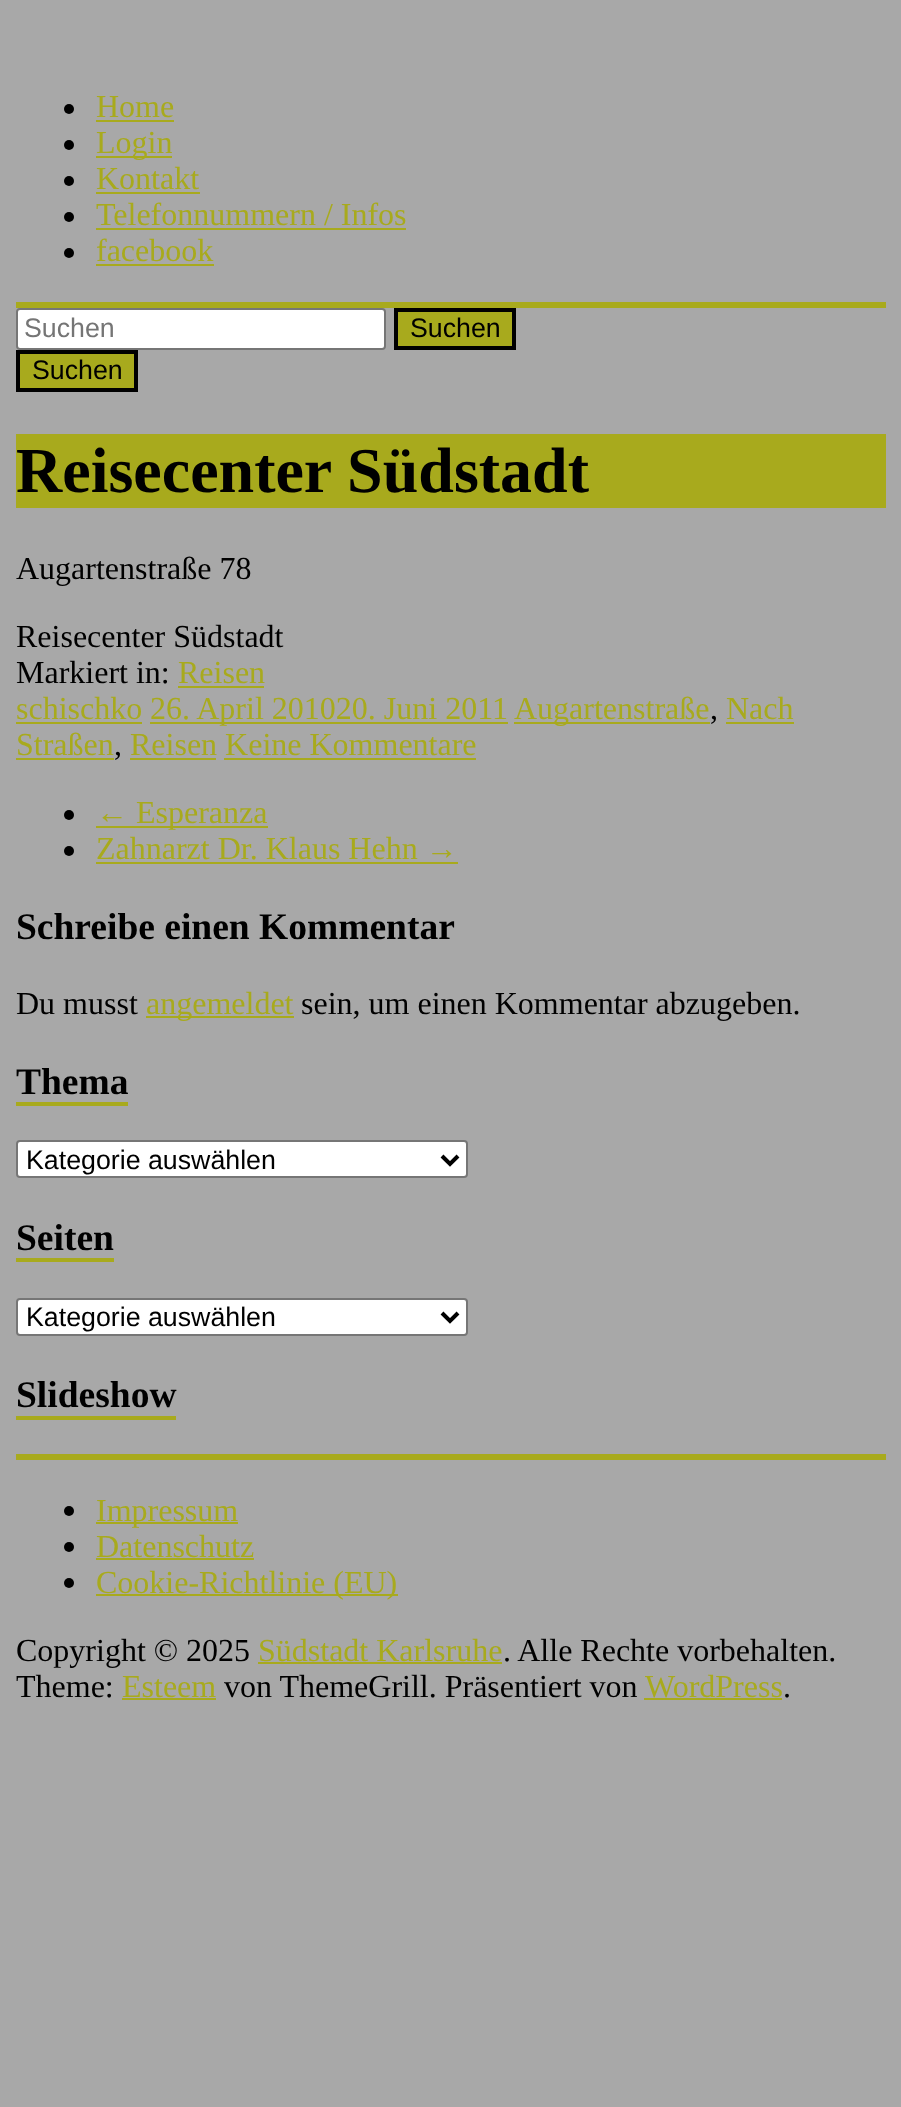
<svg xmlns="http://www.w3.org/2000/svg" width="901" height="2107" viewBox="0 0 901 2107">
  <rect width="100%" height="100%" fill="rgb(168,168,168)"/>
  <circle cx="69" cy="109" r="5" fill="rgb(0,0,0)"/>
  <text x="96" y="117" font-family="Liberation Serif" font-size="32" fill="rgb(168,170,29)">Home</text>
  <rect x="96" y="120" width="78" height="2" fill="rgb(168,170,29)"/>
  <circle cx="69" cy="145" r="5" fill="rgb(0,0,0)"/>
  <rect x="96" y="156" width="76" height="2" fill="rgb(168,170,29)"/>
  <text x="96" y="153" font-family="Liberation Serif" font-size="32" fill="rgb(168,170,29)">Login</text>
  <circle cx="69" cy="181" r="5" fill="rgb(0,0,0)"/>
  <text x="96" y="189" font-family="Liberation Serif" font-size="32" fill="rgb(168,170,29)">Kontakt</text>
  <rect x="96" y="192" width="104" height="2" fill="rgb(168,170,29)"/>
  <circle cx="69" cy="217" r="5" fill="rgb(0,0,0)"/>
  <text x="96" y="225" font-family="Liberation Serif" font-size="32" fill="rgb(168,170,29)">Telefonnummern / Infos</text>
  <rect x="96" y="228" width="310" height="2" fill="rgb(168,170,29)"/>
  <circle cx="69" cy="253" r="5" fill="rgb(0,0,0)"/>
  <text x="96" y="261" font-family="Liberation Serif" font-size="32" fill="rgb(168,170,29)">facebook</text>
  <rect x="96" y="264" width="118" height="2" fill="rgb(168,170,29)"/>
  <rect x="16" y="302" width="870" height="6" fill="rgb(168,170,29)"/>
  <rect x="17" y="309" width="368" height="40" rx="3" fill="rgb(255,255,255)" stroke="rgb(118,118,118)" stroke-width="2"/>
  <text x="24" y="337" font-family="Liberation Sans" font-size="26.75" fill="rgb(117,117,117)">Suchen</text>
  <rect x="396" y="310" width="118" height="38" fill="rgb(168,170,29)" stroke="rgb(0,0,0)" stroke-width="4"/>
  <text x="410" y="337" font-family="Liberation Sans" font-size="26.75" fill="rgb(0,0,0)">Suchen</text>
  <rect x="18" y="352" width="118" height="38" fill="rgb(168,170,29)" stroke="rgb(0,0,0)" stroke-width="4"/>
  <text x="32" y="379" font-family="Liberation Sans" font-size="26.75" fill="rgb(0,0,0)">Suchen</text>
  <rect x="16" y="434" width="870" height="74" fill="rgb(168,170,29)"/>
  <text x="16" y="492" font-family="Liberation Serif" font-size="64" font-weight="bold" fill="rgb(0,0,0)">Reisecenter Südstadt</text>
  <g font-family="Liberation Serif" font-size="32" fill="rgb(0,0,0)">
    <text x="16" y="579">Augartenstraße 78</text>
    <text>
      <tspan x="16" y="647">Reisecenter Südstadt</tspan>
      <tspan x="16" y="683">Markiert in:</tspan>
    </text>
  </g>
  <text x="178" y="683" font-family="Liberation Serif" font-size="32" fill="rgb(168,170,29)">Reisen</text>
  <rect x="178" y="686" width="86" height="2" fill="rgb(168,170,29)"/>
  <text x="16" y="719" font-family="Liberation Serif" font-size="32" fill="rgb(168,170,29)">schischko</text>
  <rect x="16" y="722" width="126" height="2" fill="rgb(168,170,29)"/>
  <rect x="150" y="722" width="358" height="2" fill="rgb(168,170,29)"/>
  <text x="150" y="719" font-family="Liberation Serif" font-size="32" fill="rgb(168,170,29)">26. April 201020. Juni 2011</text>
  <rect x="514" y="722" width="196" height="2" fill="rgb(168,170,29)"/>
  <text x="514" y="719" font-family="Liberation Serif" font-size="32" fill="rgb(168,170,29)">Augartenstraße</text>
  <text x="710" y="719" font-family="Liberation Serif" font-size="32" fill="rgb(0,0,0)">,</text>
  <rect x="726" y="722" width="68" height="2" fill="rgb(168,170,29)"/>
  <g font-family="Liberation Serif" font-size="32" fill="rgb(168,170,29)">
    <text x="726" y="719">Nach</text>
    <text x="16" y="755">Straßen</text>
  </g>
  <text x="114" y="755" font-family="Liberation Serif" font-size="32" fill="rgb(0,0,0)">,</text>
  <rect x="16" y="758" width="98" height="2" fill="rgb(168,170,29)"/>
  <rect x="130" y="758" width="86" height="2" fill="rgb(168,170,29)"/>
  <text x="130" y="755" font-family="Liberation Serif" font-size="32" fill="rgb(168,170,29)">Reisen Keine Kommentare</text>
  <rect x="224" y="758" width="252" height="2" fill="rgb(168,170,29)"/>
  <circle cx="69" cy="815" r="5" fill="rgb(0,0,0)"/>
  <rect x="96" y="826" width="172" height="2" fill="rgb(168,170,29)"/>
  <text x="96" y="823" font-family="Liberation Serif" font-size="32" fill="rgb(168,170,29)">← Esperanza</text>
  <circle cx="69" cy="851" r="5" fill="rgb(0,0,0)"/>
  <text x="96" y="859" font-family="Liberation Serif" font-size="32" fill="rgb(168,170,29)">Zahnarzt Dr. Klaus Hehn →</text>
  <rect x="96" y="862" width="362" height="2" fill="rgb(168,170,29)"/>
  <text x="16" y="939" font-family="Liberation Serif" font-size="37.5" font-weight="bold" fill="rgb(0,0,0)">Schreibe einen Kommentar</text>
  <text x="16" y="1014" font-family="Liberation Serif" font-size="32" fill="rgb(0,0,0)">Du musst</text>
  <rect x="146" y="1016" width="148" height="2" fill="rgb(168,170,29)"/>
  <text x="146" y="1014" font-family="Liberation Serif" font-size="32" fill="rgb(168,170,29)">angemeldet</text>
  <text x="301" y="1014" font-family="Liberation Serif" font-size="32" fill="rgb(0,0,0)">sein, um einen Kommentar abzugeben.</text>
  <text x="16" y="1094" font-family="Liberation Serif" font-size="37.5" font-weight="bold" fill="rgb(0,0,0)">Thema</text>
  <rect x="16" y="1102" width="112" height="4" fill="rgb(168,170,29)"/>
  <rect x="17" y="1141" width="450" height="36" rx="3" fill="rgb(255,255,255)" stroke="rgb(118,118,118)" stroke-width="2"/>
  <path d="M442 1156L450 1164L458 1156" fill="none" stroke="rgb(0,0,0)" stroke-width="4"/>
  <text x="26" y="1169" font-family="Liberation Sans" font-size="26.75" fill="rgb(0,0,0)">Kategorie auswählen</text>
  <text x="16" y="1250" font-family="Liberation Serif" font-size="37.5" font-weight="bold" fill="rgb(0,0,0)">Seiten</text>
  <rect x="16" y="1258" width="98" height="4" fill="rgb(168,170,29)"/>
  <rect x="17" y="1299" width="450" height="36" rx="3" fill="rgb(255,255,255)" stroke="rgb(118,118,118)" stroke-width="2"/>
  <path d="M442 1313L450 1321L458 1313" fill="none" stroke="rgb(0,0,0)" stroke-width="4"/>
  <text x="26" y="1326" font-family="Liberation Sans" font-size="26.75" fill="rgb(0,0,0)">Kategorie auswählen</text>
  <text x="16" y="1407" font-family="Liberation Serif" font-size="37.5" font-weight="bold" fill="rgb(0,0,0)">Slideshow</text>
  <rect x="16" y="1416" width="160" height="4" fill="rgb(168,170,29)"/>
  <rect x="16" y="1454" width="870" height="6" fill="rgb(168,170,29)"/>
  <circle cx="69" cy="1511" r="5" fill="rgb(0,0,0)"/>
  <rect x="96" y="1522" width="142" height="2" fill="rgb(168,170,29)"/>
  <text x="96" y="1521" font-family="Liberation Serif" font-size="32" fill="rgb(168,170,29)">Impressum</text>
  <circle cx="69" cy="1547" r="5" fill="rgb(0,0,0)"/>
  <text x="96" y="1557" font-family="Liberation Serif" font-size="32" fill="rgb(168,170,29)">Datenschutz</text>
  <rect x="96" y="1558" width="158" height="2" fill="rgb(168,170,29)"/>
  <circle cx="69" cy="1583" r="5" fill="rgb(0,0,0)"/>
  <rect x="96" y="1594" width="302" height="2" fill="rgb(168,170,29)"/>
  <text x="96" y="1593" font-family="Liberation Serif" font-size="32" fill="rgb(168,170,29)">Cookie-Richtlinie (EU)</text>
  <text x="16" y="1661" font-family="Liberation Serif" font-size="32" fill="rgb(0,0,0)">Copyright © 2025</text>
  <text x="258" y="1661" font-family="Liberation Serif" font-size="32" fill="rgb(168,170,29)">Südstadt Karlsruhe</text>
  <rect x="258" y="1662" width="244" height="2" fill="rgb(168,170,29)"/>
  <g font-family="Liberation Serif" font-size="32" fill="rgb(0,0,0)">
    <text x="503" y="1661">. Alle Rechte vorbehalten.</text>
    <text x="16" y="1697">Theme:</text>
  </g>
  <text x="122" y="1697" font-family="Liberation Serif" font-size="32" fill="rgb(168,170,29)">Esteem</text>
  <rect x="122" y="1698" width="94" height="2" fill="rgb(168,170,29)"/>
  <text x="224" y="1697" font-family="Liberation Serif" font-size="32" fill="rgb(0,0,0)">von ThemeGrill. Präsentiert von</text>
  <text x="645" y="1697" font-family="Liberation Serif" font-size="32" fill="rgb(168,170,29)">WordPress</text>
  <rect x="644" y="1698" width="138" height="2" fill="rgb(168,170,29)"/>
  <text x="783" y="1697" font-family="Liberation Serif" font-size="32" fill="rgb(0,0,0)">.</text>
</svg>
